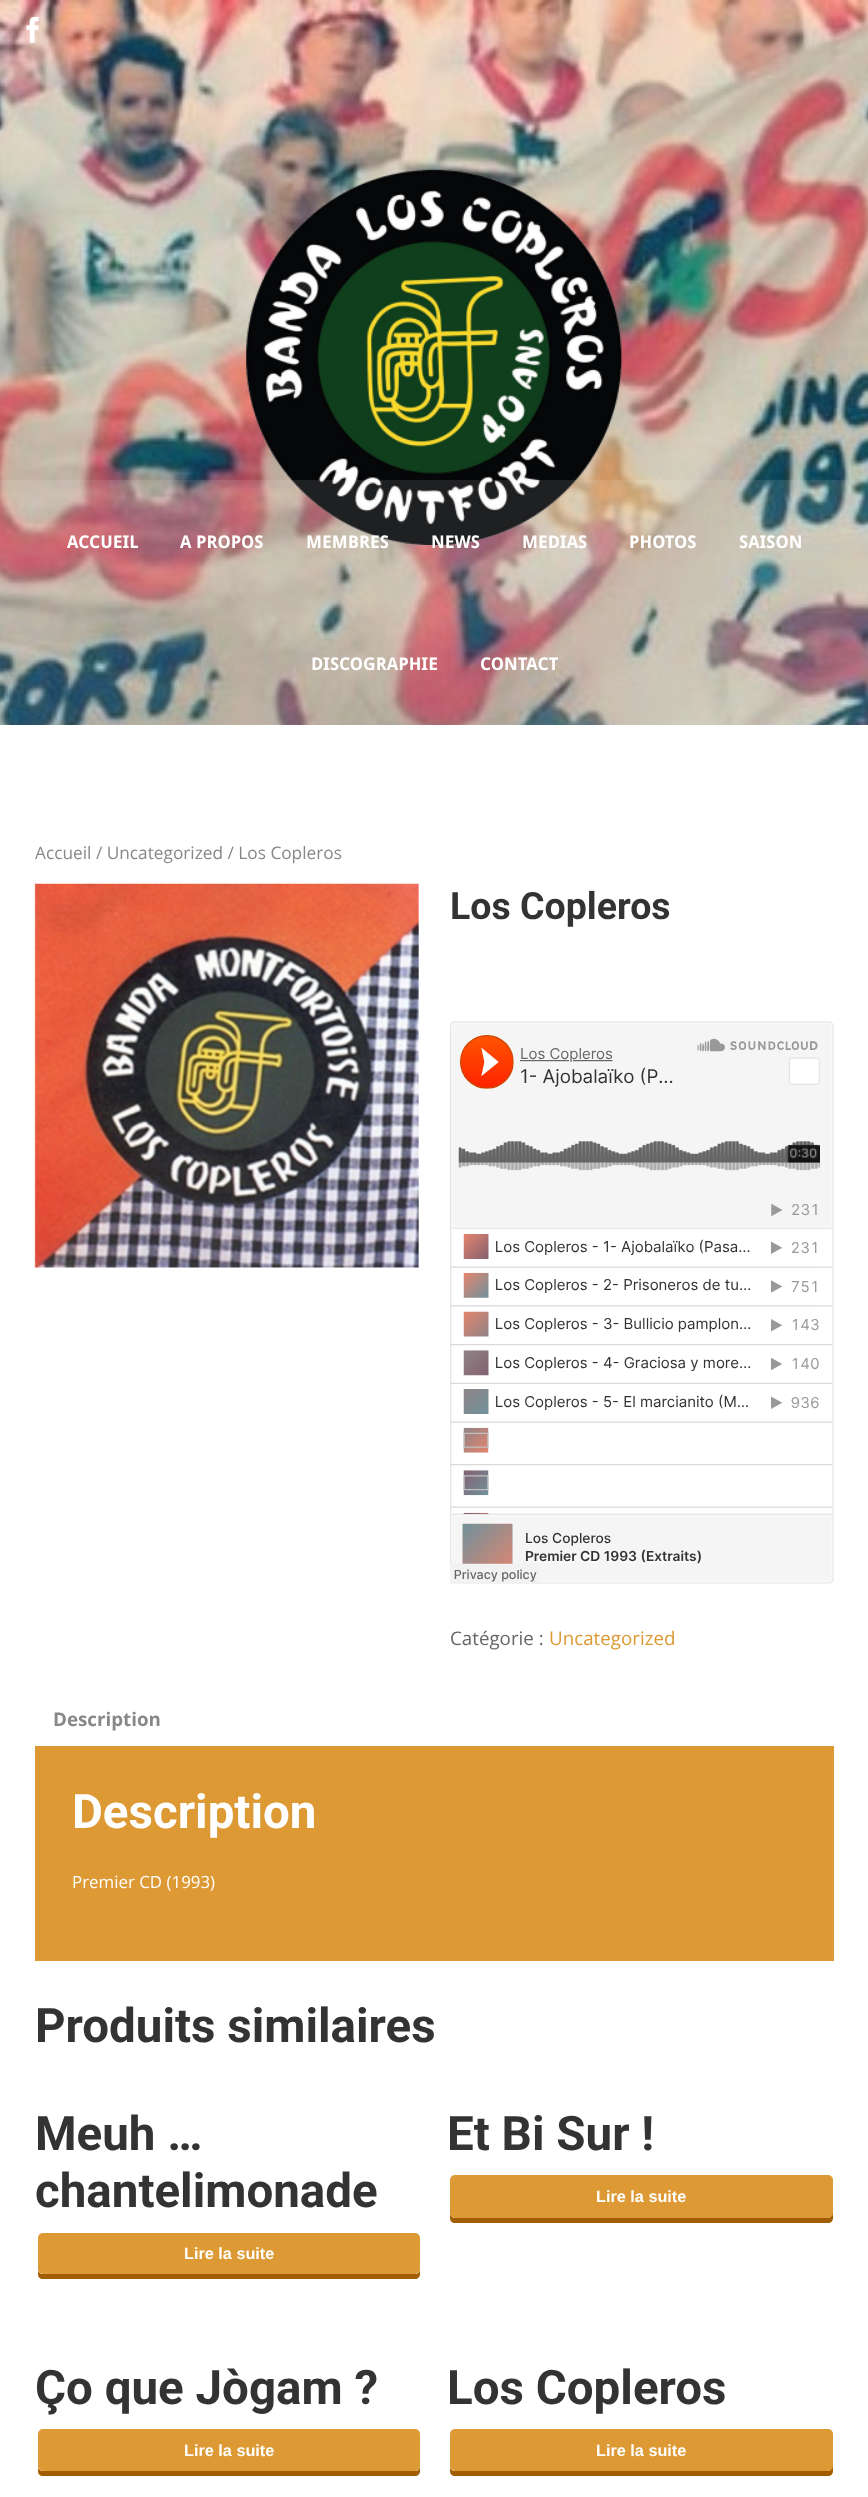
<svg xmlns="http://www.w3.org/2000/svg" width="868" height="2497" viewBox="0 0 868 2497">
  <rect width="100%" height="100%" fill="rgb(255,255,255)"/>
  <image x="0" y="0" width="868" height="725" href="pic1.png"/>
  <image x="26" y="16" width="13" height="27" href="pic2.png"/>
  <image x="246" y="169" width="376" height="376" href="pic3.png"/>
  <rect x="0" y="480" width="868" height="245" fill="rgba(255,255,255,0.1)"/>
  <g font-family="Droid Sans" font-size="17.5" font-weight="bold" fill="rgb(255,255,255)">
    <text x="67" y="548">ACCUEIL</text>
    <text x="180" y="548">A PROPOS</text>
    <text x="306" y="548">MEMBRES</text>
    <text x="431" y="548">NEWS</text>
    <text x="522" y="548">MEDIAS</text>
    <text x="629" y="548">PHOTOS</text>
    <text x="739" y="548">SAISON</text>
    <text x="311" y="670">DISCOGRAPHIE</text>
    <text x="480" y="670">CONTACT</text>
  </g>
  <text x="35" y="859" font-family="Open Sans" font-size="17.25" fill="rgb(136,136,136)">Accueil / Uncategorized / Los Copleros</text>
  <image x="34" y="883" width="385" height="385" href="pic4.png"/>
  <text x="450" y="919" font-family="Roboto" font-size="37.5" font-weight="bold" fill="rgb(51,51,51)">Los Copleros</text>
  <image x="450" y="1021" width="384" height="563" href="pic5.png"/>
  <text x="450" y="1645" font-family="Open Sans" font-size="18.75" fill="rgb(102,102,102)">Catégorie :</text>
  <text x="549" y="1645" font-family="Open Sans" font-size="18.75" fill="rgb(221,153,51)">Uncategorized</text>
  <text x="53" y="1726" font-family="Open Sans" font-size="18.75" font-weight="bold" fill="rgb(136,136,136)">Description</text>
  <rect x="35" y="1746" width="799" height="215" fill="rgb(221,153,51)"/>
  <text x="72" y="1828" font-family="Roboto" font-size="47.5" font-weight="bold" fill="rgb(255,255,255)">Description</text>
  <text x="72" y="1888" font-family="Open Sans" font-size="16.9" fill="rgb(255,255,255)">Premier CD (1993)</text>
  <g font-family="Roboto" font-size="47.5" font-weight="bold" fill="rgb(51,51,51)">
    <text x="35" y="2042">Produits similaires</text>
    <text>
      <tspan x="35" y="2150">Meuh …</tspan>
      <tspan x="35" y="2207">chantelimonade</tspan>
    </text>
  </g>
  <path d="M38 2271V2274C38 2277 40 2279 43 2279H415C418 2279 420 2277 420 2274V2269C420 2272 418 2274 415 2274H42C41 2274 39 2273 38 2271Z" fill="rgb(161,93,0)"/>
  <rect x="38" y="2233" width="382" height="41" rx="5" fill="rgb(221,153,51)"/>
  <text x="184" y="2259" font-family="Liberation Sans" font-size="16.25" font-weight="bold" fill="rgb(255,255,255)">Lire la suite</text>
  <text x="447" y="2150" font-family="Roboto" font-size="47.5" font-weight="bold" fill="rgb(51,51,51)">Et Bi Sur !</text>
  <path d="M450 2212V2218C450 2221 452 2223 455 2223H828C831 2223 833 2221 833 2218V2185L832 2183V2212C832 2215 830 2218 828 2218H455C452 2218 450 2215 450 2212Z" fill="rgb(161,93,0)"/>
  <rect x="450" y="2175" width="383" height="43" rx="5" fill="rgb(221,153,51)"/>
  <text x="596" y="2202" font-family="Liberation Sans" font-size="16.25" font-weight="bold" fill="rgb(255,255,255)">Lire la suite</text>
  <text x="35" y="2404" font-family="Roboto" font-size="47.5" font-weight="bold" fill="rgb(51,51,51)">Ço que Jògam ?</text>
  <path d="M38 2468V2471C38 2474 40 2476 43 2476H415C418 2476 420 2474 420 2471V2466C420 2469 418 2471 415 2471H42C41 2471 39 2470 38 2468Z" fill="rgb(161,93,0)"/>
  <rect x="38" y="2429" width="382" height="42" rx="5" fill="rgb(221,153,51)"/>
  <text x="184" y="2456" font-family="Liberation Sans" font-size="16.25" font-weight="bold" fill="rgb(255,255,255)">Lire la suite</text>
  <text x="447" y="2404" font-family="Roboto" font-size="47.5" font-weight="bold" fill="rgb(51,51,51)">Los Copleros</text>
  <path d="M450 2466V2471C450 2474 452 2476 455 2476H828C831 2476 833 2474 833 2471V2439L832 2437V2466C832 2469 830 2471 828 2471H455C452 2471 450 2469 450 2466Z" fill="rgb(161,93,0)"/>
  <rect x="450" y="2429" width="383" height="42" rx="5" fill="rgb(221,153,51)"/>
  <text x="596" y="2456" font-family="Liberation Sans" font-size="16.25" font-weight="bold" fill="rgb(255,255,255)">Lire la suite</text>
</svg>
